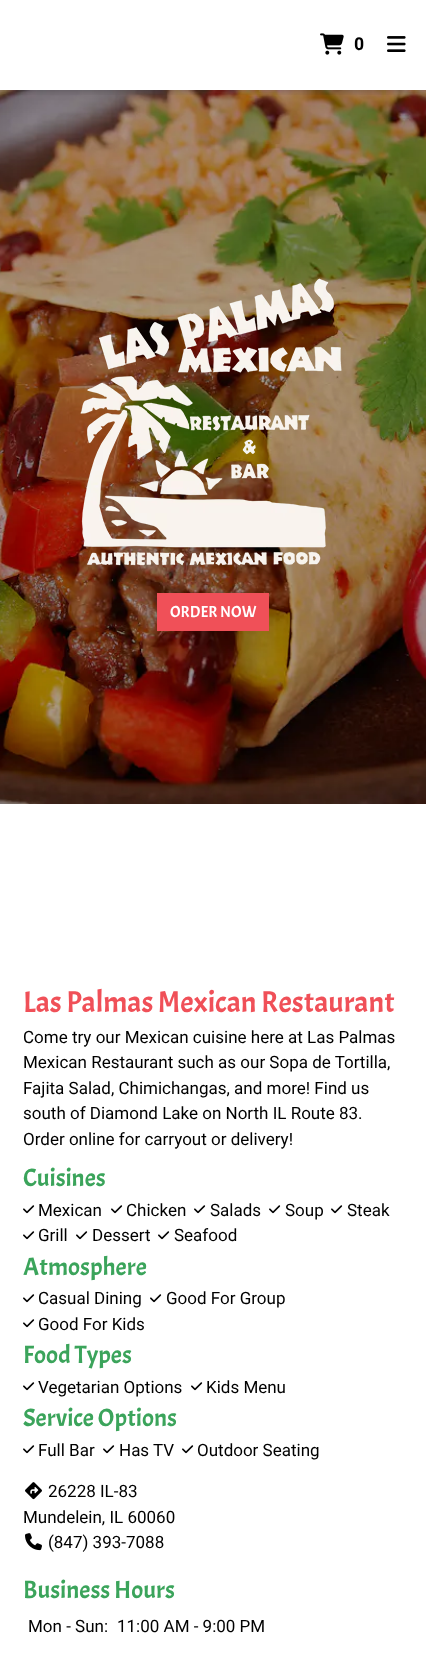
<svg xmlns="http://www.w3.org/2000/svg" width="426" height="1679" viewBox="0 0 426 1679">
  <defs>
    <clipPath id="clip1"><rect x="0" y="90" width="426" height="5"/></clipPath>
  </defs>
  <rect width="100%" height="100%" fill="rgb(255,255,255)"/>
  <image x="0" y="90" width="426" height="714" href="pic3.png"/>
  <g clip-path="url(#clip1)">
    <rect x="0" y="1" width="426" height="90" fill="rgba(32,33,36,0.28)" filter="blur(3px)"/>
  </g>
  <image x="320" y="33" width="24" height="22" href="pic1.png"/>
  <text x="354" y="50" font-family="Roboto" font-size="17" font-weight="bold" fill="rgb(0,0,0)">0</text>
  <image x="387" y="36" width="19" height="16" href="pic2.png"/>
  <image x="80" y="278" width="262" height="288" href="pic4.png"/>
  <rect x="157" y="593" width="112" height="38" fill="rgb(240,80,88)"/>
  <text x="170" y="617" font-family="Acme" font-size="16" fill="rgb(255,255,255)">ORDER NOW</text>
  <text x="23" y="1012" font-family="Acme" font-size="30" fill="rgb(240,80,88)">Las Palmas Mexican Restaurant</text>
  <g font-family="Roboto" font-size="17" fill="rgb(0,0,0)">
    <text>
      <tspan x="23" y="1043">Come try our Mexican cuisine here at Las Palmas</tspan>
      <tspan x="23" y="1068">Mexican Restaurant such as our Sopa de Tortilla,</tspan>
      <tspan x="23" y="1094">Fajita Salad, Chimichangas, and more! Find us</tspan>
      <tspan x="23" y="1119">south of Diamond Lake on North IL Route 83.</tspan>
      <tspan x="23" y="1145">Order online for carryout or delivery!</tspan>
    </text>
  </g>
  <text x="23" y="1186" font-family="Acme" font-size="25" fill="rgb(59,164,91)">Cuisines</text>
  <image x="23" y="1205" width="12" height="9" href="pic5.png"/>
  <text x="38" y="1216" font-family="Roboto" font-size="17" fill="rgb(0,0,0)">Mexican</text>
  <image x="111" y="1205" width="12" height="9" href="pic5.png"/>
  <text x="126" y="1216" font-family="Roboto" font-size="17" fill="rgb(0,0,0)">Chicken</text>
  <image x="194" y="1205" width="12" height="9" href="pic5.png"/>
  <text x="210" y="1216" font-family="Roboto" font-size="17" fill="rgb(0,0,0)">Salads</text>
  <image x="269" y="1205" width="12" height="9" href="pic5.png"/>
  <text x="285" y="1216" font-family="Roboto" font-size="17" fill="rgb(0,0,0)">Soup</text>
  <image x="331" y="1205" width="12" height="9" href="pic5.png"/>
  <text x="347" y="1216" font-family="Roboto" font-size="17" fill="rgb(0,0,0)">Steak</text>
  <image x="23" y="1231" width="12" height="9" href="pic5.png"/>
  <text x="38" y="1241" font-family="Roboto" font-size="17" fill="rgb(0,0,0)">Grill</text>
  <image x="76" y="1231" width="12" height="9" href="pic5.png"/>
  <text x="92" y="1241" font-family="Roboto" font-size="17" fill="rgb(0,0,0)">Dessert</text>
  <image x="158" y="1231" width="12" height="9" href="pic5.png"/>
  <text x="174" y="1241" font-family="Roboto" font-size="17" fill="rgb(0,0,0)">Seafood</text>
  <text x="23" y="1275" font-family="Acme" font-size="25" fill="rgb(59,164,91)">Atmosphere</text>
  <image x="23" y="1294" width="12" height="9" href="pic5.png"/>
  <text x="38" y="1304" font-family="Roboto" font-size="17" fill="rgb(0,0,0)">Casual Dining</text>
  <image x="150" y="1294" width="12" height="9" href="pic5.png"/>
  <text x="166" y="1304" font-family="Roboto" font-size="17" fill="rgb(0,0,0)">Good For Group</text>
  <image x="23" y="1319" width="12" height="9" href="pic5.png"/>
  <text x="38" y="1330" font-family="Roboto" font-size="17" fill="rgb(0,0,0)">Good For Kids</text>
  <text x="23" y="1363" font-family="Acme" font-size="25" fill="rgb(59,164,91)">Food Types</text>
  <image x="23" y="1382" width="12" height="9" href="pic5.png"/>
  <text x="38" y="1393" font-family="Roboto" font-size="17" fill="rgb(0,0,0)">Vegetarian Options</text>
  <image x="191" y="1382" width="12" height="9" href="pic5.png"/>
  <text x="206" y="1393" font-family="Roboto" font-size="17" fill="rgb(0,0,0)">Kids Menu</text>
  <text x="23" y="1426" font-family="Acme" font-size="25" fill="rgb(59,164,91)">Service Options</text>
  <image x="23" y="1445" width="12" height="9" href="pic5.png"/>
  <text x="38" y="1456" font-family="Roboto" font-size="17" fill="rgb(0,0,0)">Full Bar</text>
  <image x="103" y="1445" width="12" height="9" href="pic5.png"/>
  <text x="119" y="1456" font-family="Roboto" font-size="17" fill="rgb(0,0,0)">Has TV</text>
  <image x="182" y="1445" width="12" height="9" href="pic5.png"/>
  <text x="197" y="1456" font-family="Roboto" font-size="17" fill="rgb(0,0,0)">Outdoor Seating</text>
  <image x="25" y="1482" width="17" height="18" href="pic6.png"/>
  <g font-family="Roboto" font-size="17" fill="rgb(0,0,0)">
    <text x="48" y="1497">26228 IL-83</text>
    <text x="23" y="1523">Mundelein, IL 60060</text>
  </g>
  <image x="25" y="1533" width="17" height="18" href="pic7.png"/>
  <text x="48" y="1548" font-family="Roboto" font-size="17" fill="rgb(0,0,0)">(847) 393-7088</text>
  <text x="23" y="1598" font-family="Acme" font-size="25" fill="rgb(59,164,91)">Business Hours</text>
  <g font-family="Roboto" font-size="17" fill="rgb(0,0,0)">
    <text x="28" y="1632">Mon - Sun:</text>
    <text x="117" y="1632">11:00 AM - 9:00 PM</text>
  </g>
</svg>
